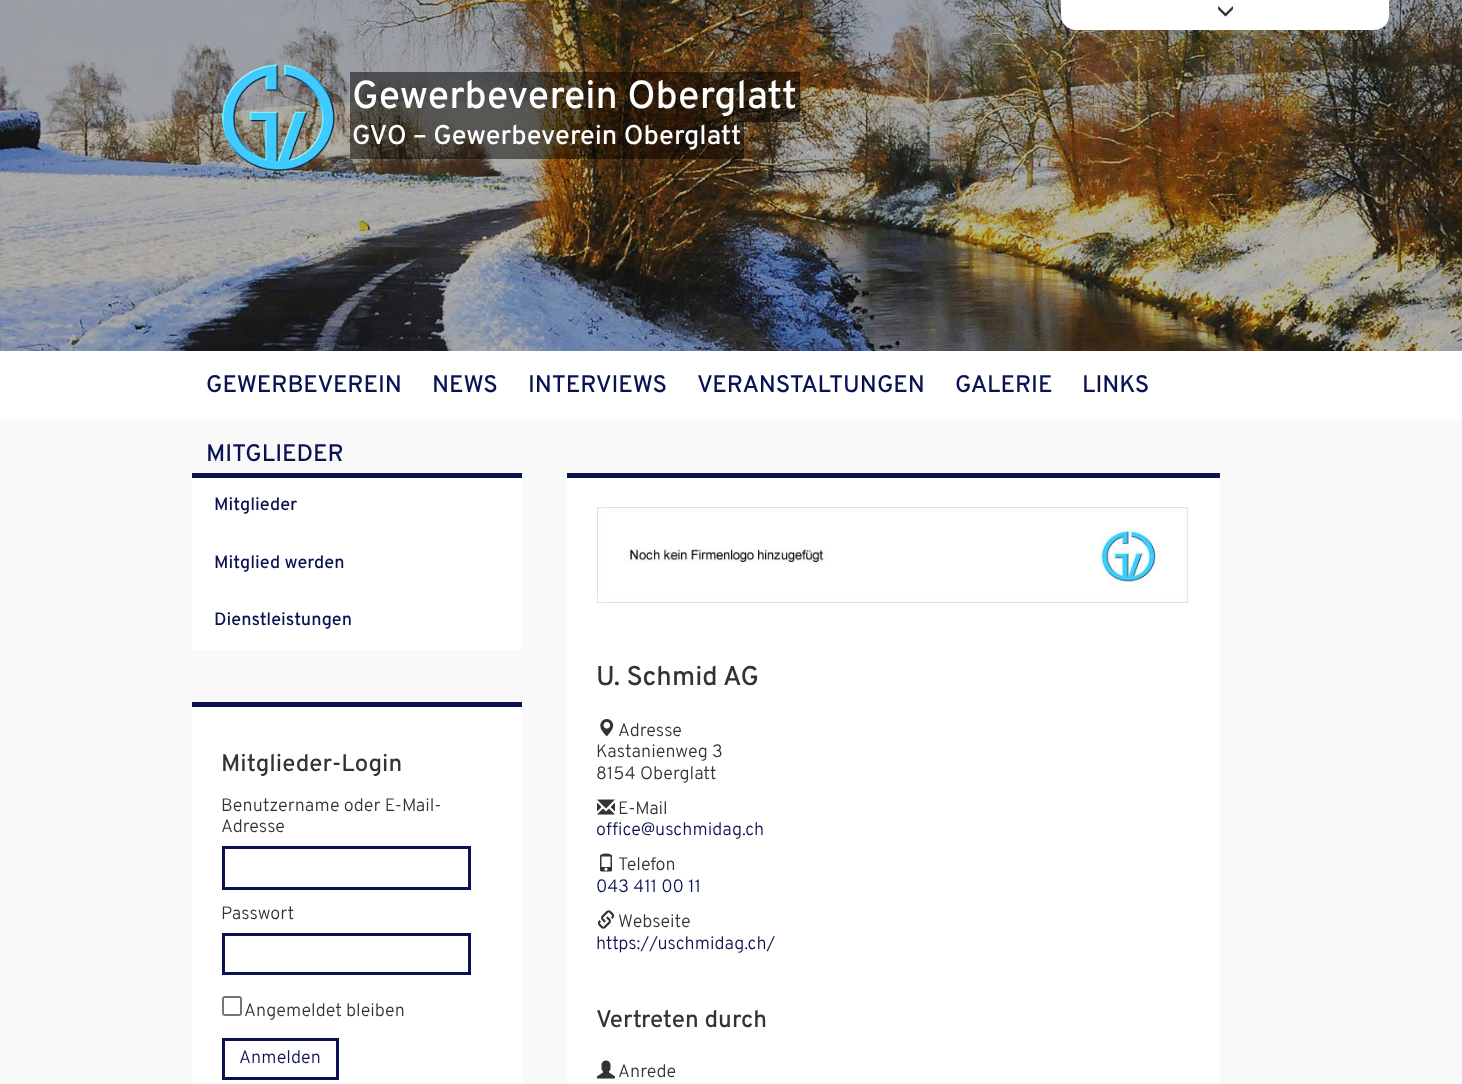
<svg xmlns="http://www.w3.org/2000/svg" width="1462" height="1084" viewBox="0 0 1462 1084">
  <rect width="100%" height="100%" fill="rgb(249,249,249)"/>
  <image x="0" y="0" width="1462" height="351" href="pic1.png"/>
  <path d="M1061-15H1389V15C1389 23.5 1382.5 30 1374 30H1076C1067.5 30 1061 23.5 1061 15Z" fill="rgb(255,255,255)"/>
  <image x="1218" y="6" width="15" height="11" href="pic2.png"/>
  <image x="222" y="64" width="113" height="107" href="pic3.png"/>
  <rect x="350" y="72" width="450" height="50" fill="rgba(0,0,0,0.5)"/>
  <text x="352" y="108" font-family="Overpass" font-size="39" font-weight="500" fill="rgb(255,255,255)">Gewerbeverein Oberglatt</text>
  <rect x="350" y="122" width="394" height="37" fill="rgba(0,0,0,0.5)"/>
  <text x="352" y="144" font-family="Overpass" font-size="27" font-weight="500" fill="rgb(255,255,255)">GVO – Gewerbeverein Oberglatt</text>
  <rect x="0" y="351" width="1462" height="68" fill="rgb(255,255,255)"/>
  <g font-family="Overpass" font-size="24" font-weight="500" fill="rgb(11,18,82)">
    <text x="206" y="392">GEWERBEVEREIN</text>
    <text x="432" y="392">NEWS</text>
    <text x="528" y="392">INTERVIEWS</text>
    <text x="697" y="392">VERANSTALTUNGEN</text>
    <text x="955" y="392">GALERIE</text>
    <text x="1082" y="392">LINKS</text>
    <text x="206" y="461">MITGLIEDER</text>
  </g>
  <rect x="192" y="478" width="330" height="172" fill="rgb(255,255,255)"/>
  <rect x="192" y="473" width="330" height="5" fill="rgb(11,18,82)"/>
  <g font-family="Overpass" font-size="18" font-weight="500" fill="rgb(11,18,82)">
    <text x="214" y="510">Mitglieder</text>
    <text x="214" y="568">Mitglied werden</text>
    <text x="214" y="625">Dienstleistungen</text>
  </g>
  <rect x="192" y="707" width="330" height="377" fill="rgb(255,255,255)"/>
  <rect x="192" y="702" width="330" height="5" fill="rgb(11,18,82)"/>
  <text x="221" y="771" font-family="Overpass" font-size="24" font-weight="500" fill="rgb(51,51,51)">Mitglieder-Login</text>
  <g font-family="Overpass" font-size="18" font-weight="300" fill="rgb(51,51,51)">
    <text>
      <tspan x="221" y="811">Benutzername oder E-Mail-</tspan>
      <tspan x="221" y="832">Adresse</tspan>
    </text>
  </g>
  <rect x="223.5" y="847.5" width="246" height="41" fill="none" stroke="rgb(11,18,82)" stroke-width="3"/>
  <text x="221" y="919" font-family="Overpass" font-size="18" font-weight="300" fill="rgb(51,51,51)">Passwort</text>
  <rect x="223.5" y="934.5" width="246" height="39" fill="none" stroke="rgb(11,18,82)" stroke-width="3"/>
  <rect x="223" y="997" width="18" height="18" rx="2" fill="none" stroke="rgb(118,118,118)" stroke-width="2"/>
  <text x="244" y="1016" font-family="Overpass" font-size="18" font-weight="300" fill="rgb(51,51,51)">Angemeldet bleiben</text>
  <rect x="223.5" y="1039.5" width="114" height="39" fill="none" stroke="rgb(11,18,82)" stroke-width="3"/>
  <text x="239" y="1063" font-family="Overpass" font-size="18" font-weight="300" fill="rgb(11,18,82)">Anmelden</text>
  <rect x="567" y="478" width="653" height="606" fill="rgb(255,255,255)"/>
  <rect x="567" y="473" width="653" height="5" fill="rgb(11,18,82)"/>
  <image x="597" y="507" width="591" height="96" href="pic4.png"/>
  <text x="596" y="685" font-family="Overpass" font-size="27" font-weight="500" fill="rgb(51,51,51)">U. Schmid AG</text>
  <image x="600" y="719" width="14" height="18" href="pic5.png"/>
  <g font-family="Overpass" font-size="18" font-weight="300" fill="rgb(51,51,51)">
    <text x="618" y="736">Adresse</text>
    <text>
      <tspan x="596" y="757">Kastanienweg 3</tspan>
      <tspan x="596" y="779">8154 Oberglatt</tspan>
    </text>
  </g>
  <image x="597" y="799" width="18" height="16" href="pic6.png"/>
  <text x="618" y="814" font-family="Overpass" font-size="18" font-weight="300" fill="rgb(51,51,51)">E-Mail</text>
  <text x="596" y="835" font-family="Overpass" font-size="18" font-weight="300" fill="rgb(11,18,82)">office@uschmidag.ch</text>
  <image x="600" y="853" width="12" height="19" href="pic7.png"/>
  <text x="618" y="870" font-family="Overpass" font-size="18" font-weight="300" fill="rgb(51,51,51)">Telefon</text>
  <text x="596" y="892" font-family="Overpass" font-size="18" font-weight="300" fill="rgb(11,18,82)">043 411 00 11</text>
  <image x="597" y="910" width="18" height="19" href="pic8.png"/>
  <text x="618" y="927" font-family="Overpass" font-size="18" font-weight="300" fill="rgb(51,51,51)">Webseite</text>
  <text x="596" y="949" font-family="Overpass" font-size="18" font-weight="300" fill="rgb(11,18,82)">https://uschmidag.ch/</text>
  <text x="596" y="1027" font-family="Overpass" font-size="24" font-weight="500" fill="rgb(51,51,51)">Vertreten durch</text>
  <image x="597" y="1060" width="18" height="19" href="pic9.png"/>
  <text x="618" y="1077" font-family="Overpass" font-size="18" font-weight="300" fill="rgb(51,51,51)">Anrede</text>
</svg>
